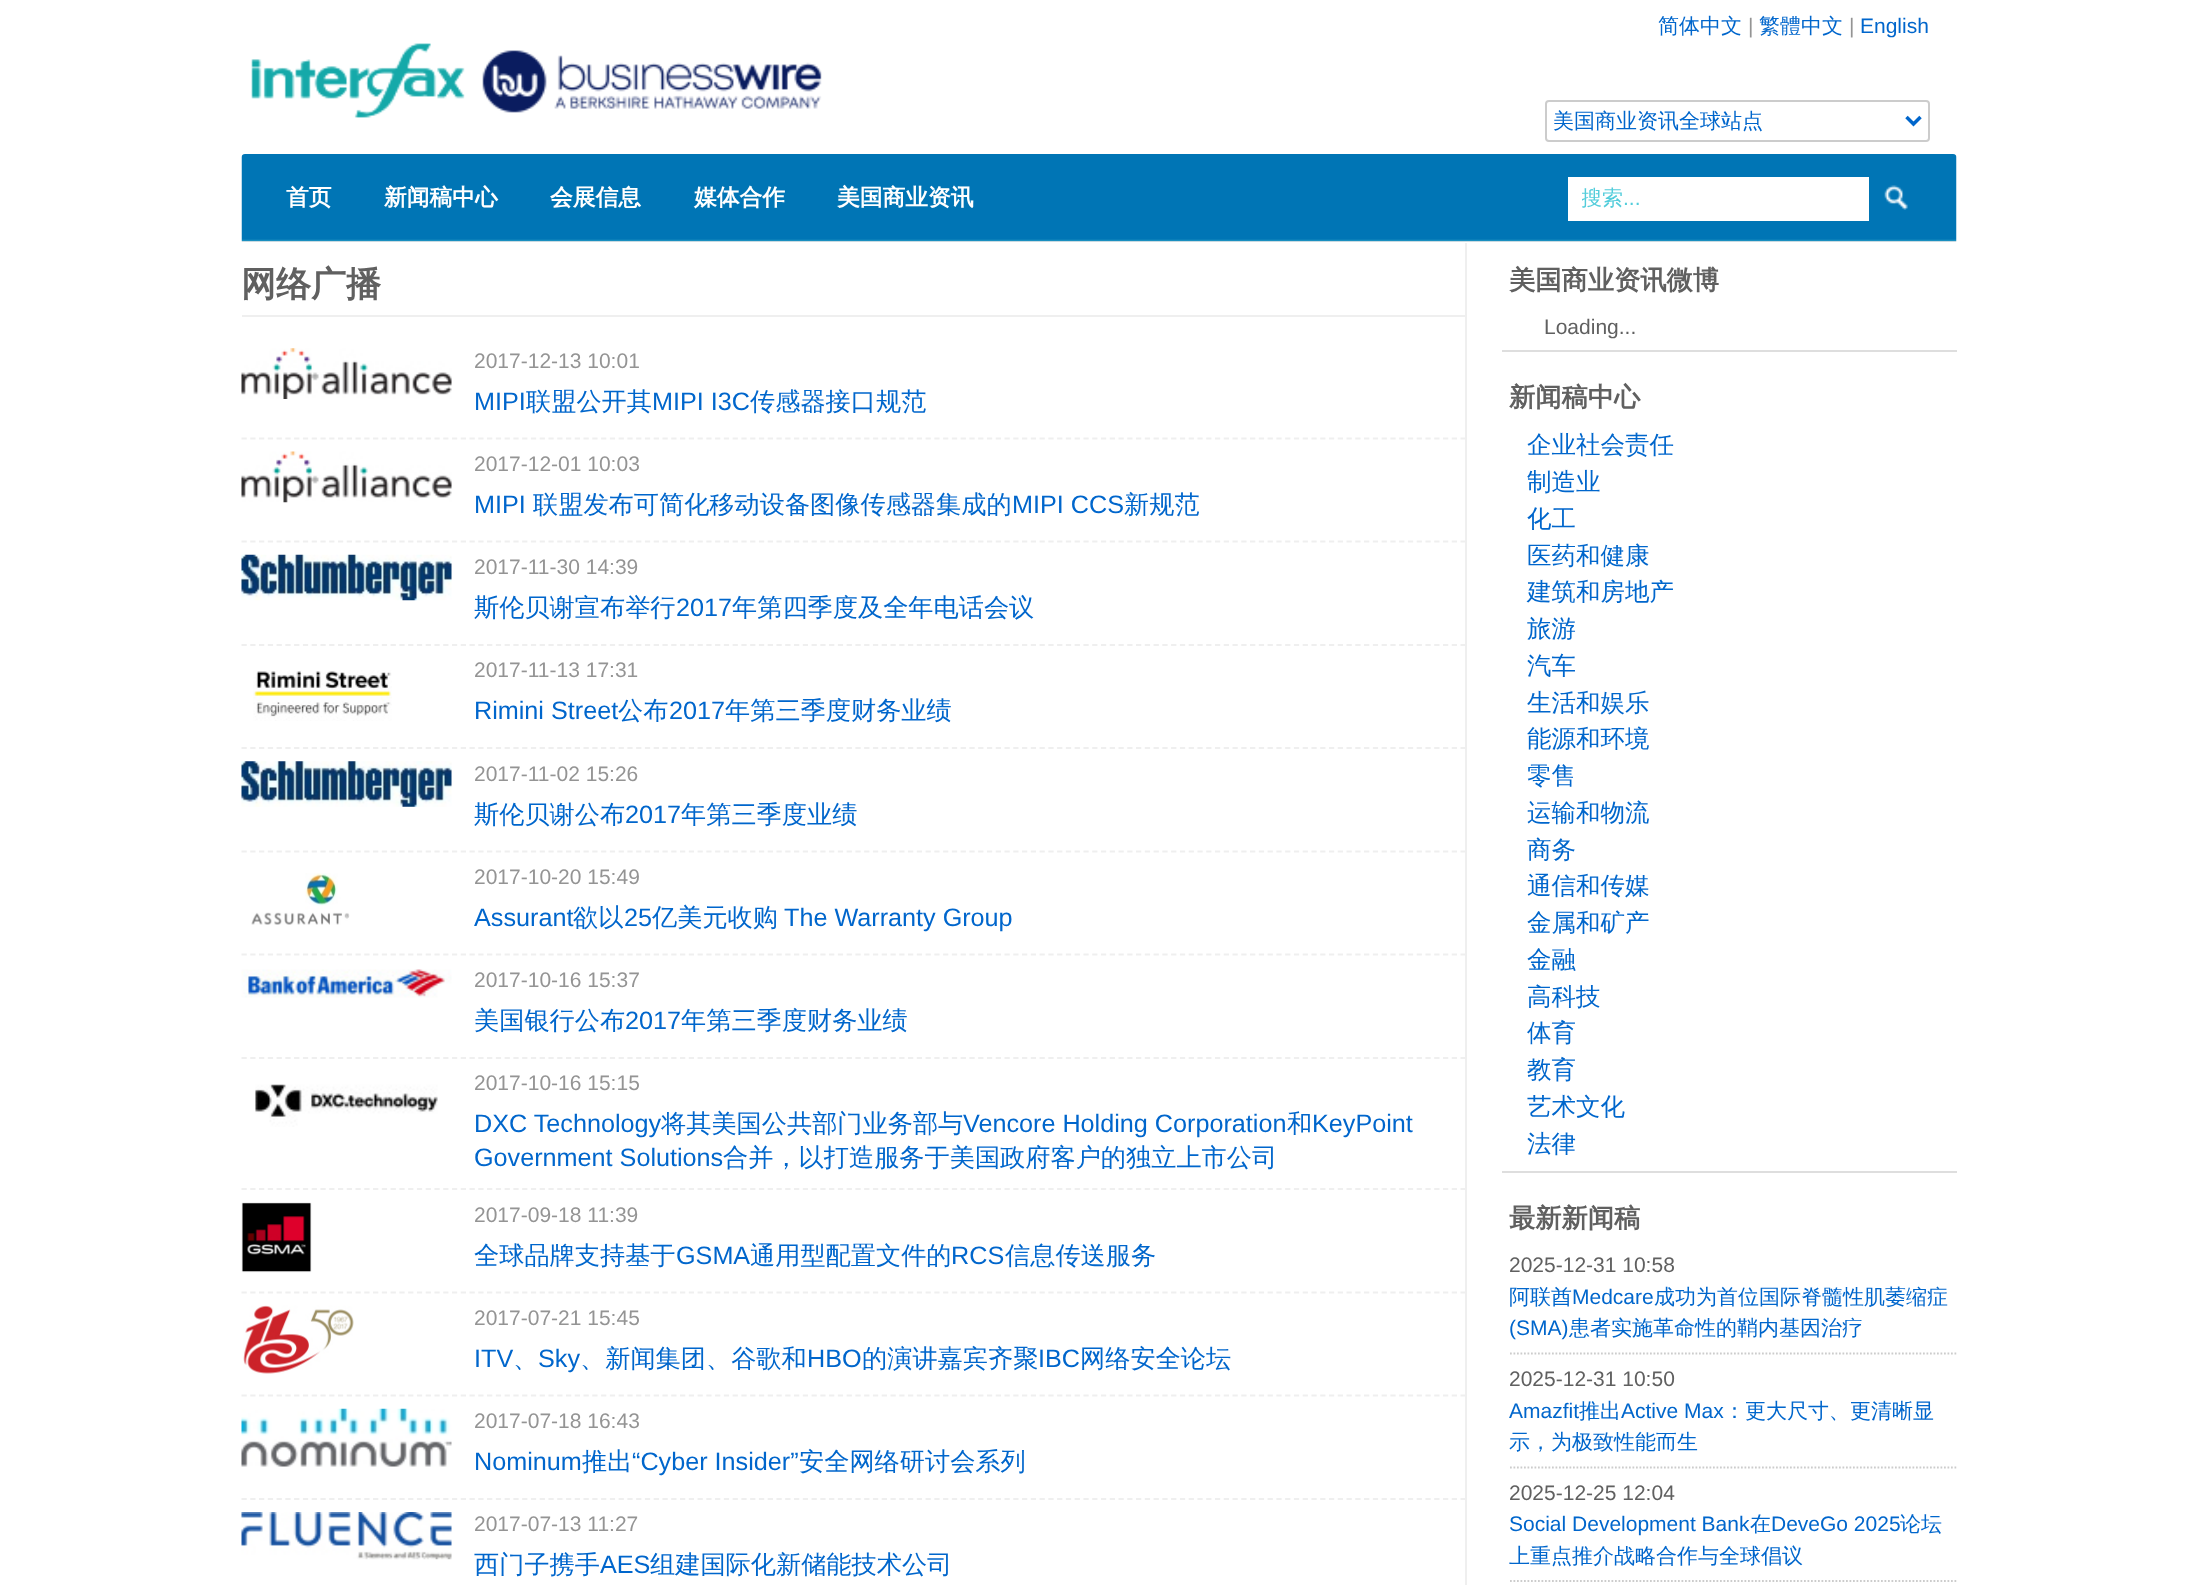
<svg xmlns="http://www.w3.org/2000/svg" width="2196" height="1585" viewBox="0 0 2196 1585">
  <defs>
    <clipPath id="clip1"><rect x="1582" y="184" width="273" height="28"/></clipPath>
  </defs>
  <rect width="100%" height="100%" fill="rgb(255,255,255)"/>
  <image x="251" y="43" width="571" height="75" href="pic1.png"/>
  <text x="1658" y="33" font-family="WenQuanYi Zen Hei" font-size="21" font-weight="500" fill="rgb(0,102,204)">简体中文</text>
  <text x="1748" y="33" font-family="Liberation Sans" font-size="21" fill="rgb(148,148,148)">|</text>
  <text x="1759" y="33" font-family="WenQuanYi Zen Hei" font-size="21" font-weight="500" fill="rgb(0,102,204)">繁體中文</text>
  <text x="1849" y="33" font-family="Liberation Sans" font-size="21" fill="rgb(148,148,148)">|</text>
  <text x="1860" y="33" font-family="Liberation Sans" font-size="21" fill="rgb(0,102,204)">English</text>
  <rect x="1546" y="101" width="383" height="40" rx="3" fill="none" stroke="rgb(204,204,204)" stroke-width="2"/>
  <path d="M1906.5 117L1913.5 124L1920.5 117" fill="none" stroke="rgb(0,102,204)" stroke-width="3.5"/>
  <text x="1553" y="128" font-family="WenQuanYi Zen Hei" font-size="21" font-weight="500" fill="rgb(0,102,204)">美国商业资讯全球站点</text>
  <image x="241" y="154" width="1716" height="88" href="pic2.png"/>
  <g font-family="WenQuanYi Zen Hei" font-size="22.75" font-weight="bold" fill="rgb(255,255,255)">
    <text x="286" y="205">首页</text>
    <text x="384" y="205">新闻稿中心</text>
    <text x="550" y="205">会展信息</text>
    <text x="694" y="205">媒体合作</text>
    <text x="837" y="205">美国商业资讯</text>
  </g>
  <rect x="1568" y="177" width="301" height="44" fill="rgb(255,255,255)"/>
  <g clip-path="url(#clip1)">
    <text x="1581" y="205" font-family="WenQuanYi Zen Hei" font-size="21" font-weight="500" fill="rgb(83,205,219)">搜索</text>
  </g>
  <text x="1623" y="205" font-family="Liberation Sans" font-size="21" fill="rgb(83,205,219)">...</text>
  <image x="1884" y="185" width="24" height="25" href="pic3.png"/>
  <rect x="1465" y="243" width="2" height="1342" fill="rgb(239,239,239)"/>
  <rect x="242" y="315" width="1223" height="2" fill="rgb(239,239,239)"/>
  <text x="241" y="296" font-family="WenQuanYi Zen Hei" font-size="35" font-weight="bold" fill="rgb(96,96,96)">网络广播</text>
  <path d="M241.5 438.5H1465" fill="none" stroke="rgb(239,239,239)" stroke-width="1.8" stroke-dasharray="5.25 3.52"/>
  <image x="241" y="348" width="211" height="51" href="pic4.png"/>
  <text x="474" y="368" font-family="Liberation Sans" font-size="21" fill="rgb(148,148,148)">2017-12-13 10:01</text>
  <text x="474" y="410" font-family="Liberation Sans" font-size="25.2" fill="rgb(0,102,204)">MIPI</text>
  <text x="526" y="410" font-family="WenQuanYi Zen Hei" font-size="25.2" font-weight="500" fill="rgb(0,102,204)">联盟公开其</text>
  <text x="652" y="410" font-family="Liberation Sans" font-size="25.2" fill="rgb(0,102,204)">MIPI I3C</text>
  <text x="750" y="410" font-family="WenQuanYi Zen Hei" font-size="25.2" font-weight="500" fill="rgb(0,102,204)">传感器接口规范</text>
  <path d="M241.5 541.5H1465" fill="none" stroke="rgb(239,239,239)" stroke-width="1.8" stroke-dasharray="5.25 3.52"/>
  <image x="241" y="451" width="211" height="52" href="pic5.png"/>
  <text x="474" y="471" font-family="Liberation Sans" font-size="21" fill="rgb(148,148,148)">2017-12-01 10:03</text>
  <text x="474" y="513" font-family="Liberation Sans" font-size="25.2" fill="rgb(0,102,204)">MIPI</text>
  <text x="533" y="513" font-family="WenQuanYi Zen Hei" font-size="25.2" font-weight="500" fill="rgb(0,102,204)">联盟发布可简化移动设备图像传感器集成的</text>
  <text x="1012" y="513" font-family="Liberation Sans" font-size="25.2" fill="rgb(0,102,204)">MIPI CCS</text>
  <text x="1124" y="513" font-family="WenQuanYi Zen Hei" font-size="25.2" font-weight="500" fill="rgb(0,102,204)">新规范</text>
  <path d="M241.5 645H1465" fill="none" stroke="rgb(239,239,239)" stroke-width="1.8" stroke-dasharray="5.25 3.52"/>
  <image x="241" y="554" width="211" height="47" href="pic6.png"/>
  <text x="474" y="574" font-family="Liberation Sans" font-size="21" fill="rgb(148,148,148)">2017-11-30 14:39</text>
  <text x="474" y="616" font-family="WenQuanYi Zen Hei" font-size="25.2" font-weight="500" fill="rgb(0,102,204)">斯伦贝谢宣布举行</text>
  <text x="676" y="616" font-family="Liberation Sans" font-size="25.2" fill="rgb(0,102,204)">2017</text>
  <text x="732" y="616" font-family="WenQuanYi Zen Hei" font-size="25.2" font-weight="500" fill="rgb(0,102,204)">年第四季度及全年电话会议</text>
  <path d="M241.5 748H1465" fill="none" stroke="rgb(239,239,239)" stroke-width="1.8" stroke-dasharray="5.25 3.52"/>
  <image x="253" y="670" width="139" height="51" href="pic7.png"/>
  <text x="474" y="677" font-family="Liberation Sans" font-size="21" fill="rgb(148,148,148)">2017-11-13 17:31</text>
  <text x="474" y="719" font-family="Liberation Sans" font-size="25.2" fill="rgb(0,102,204)">Rimini Street</text>
  <text x="618" y="719" font-family="WenQuanYi Zen Hei" font-size="25.2" font-weight="500" fill="rgb(0,102,204)">公布</text>
  <text x="669" y="719" font-family="Liberation Sans" font-size="25.2" fill="rgb(0,102,204)">2017</text>
  <text x="725" y="719" font-family="WenQuanYi Zen Hei" font-size="25.2" font-weight="500" fill="rgb(0,102,204)">年第三季度财务业绩</text>
  <path d="M241.5 851.5H1465" fill="none" stroke="rgb(239,239,239)" stroke-width="1.8" stroke-dasharray="5.25 3.52"/>
  <image x="241" y="761" width="211" height="46" href="pic8.png"/>
  <text x="474" y="781" font-family="Liberation Sans" font-size="21" fill="rgb(148,148,148)">2017-11-02 15:26</text>
  <text x="474" y="823" font-family="WenQuanYi Zen Hei" font-size="25.2" font-weight="500" fill="rgb(0,102,204)">斯伦贝谢公布</text>
  <text x="625" y="823" font-family="Liberation Sans" font-size="25.2" fill="rgb(0,102,204)">2017</text>
  <text x="681" y="823" font-family="WenQuanYi Zen Hei" font-size="25.2" font-weight="500" fill="rgb(0,102,204)">年第三季度业绩</text>
  <path d="M241.5 954.5H1465" fill="none" stroke="rgb(239,239,239)" stroke-width="1.8" stroke-dasharray="5.25 3.52"/>
  <image x="251" y="873" width="99" height="52" href="pic9.png"/>
  <text x="474" y="884" font-family="Liberation Sans" font-size="21" fill="rgb(148,148,148)">2017-10-20 15:49</text>
  <text x="474" y="926" font-family="Liberation Sans" font-size="25.2" fill="rgb(0,102,204)">Assurant</text>
  <text x="573" y="926" font-family="WenQuanYi Zen Hei" font-size="25.2" font-weight="500" fill="rgb(0,102,204)">欲以</text>
  <text x="624" y="926" font-family="Liberation Sans" font-size="25.2" fill="rgb(0,102,204)">25</text>
  <text x="652" y="926" font-family="WenQuanYi Zen Hei" font-size="25.2" font-weight="500" fill="rgb(0,102,204)">亿美元收购</text>
  <text x="784" y="926" font-family="Liberation Sans" font-size="25.2" fill="rgb(0,102,204)">The Warranty Group</text>
  <path d="M241.5 1058H1465" fill="none" stroke="rgb(239,239,239)" stroke-width="1.8" stroke-dasharray="5.25 3.52"/>
  <image x="241" y="969" width="211" height="29" href="pic10.png"/>
  <text x="474" y="987" font-family="Liberation Sans" font-size="21" fill="rgb(148,148,148)">2017-10-16 15:37</text>
  <text x="474" y="1029" font-family="WenQuanYi Zen Hei" font-size="25.2" font-weight="500" fill="rgb(0,102,204)">美国银行公布</text>
  <text x="625" y="1029" font-family="Liberation Sans" font-size="25.2" fill="rgb(0,102,204)">2017</text>
  <text x="681" y="1029" font-family="WenQuanYi Zen Hei" font-size="25.2" font-weight="500" fill="rgb(0,102,204)">年第三季度财务业绩</text>
  <path d="M241.5 1189H1465" fill="none" stroke="rgb(239,239,239)" stroke-width="1.8" stroke-dasharray="5.25 3.52"/>
  <image x="255" y="1084" width="183" height="43" href="pic11.png"/>
  <text x="474" y="1090" font-family="Liberation Sans" font-size="21" fill="rgb(148,148,148)">2017-10-16 15:15</text>
  <text x="474" y="1132" font-family="Liberation Sans" font-size="25.2" fill="rgb(0,102,204)">DXC Technology</text>
  <text x="661" y="1132" font-family="WenQuanYi Zen Hei" font-size="25.2" font-weight="500" fill="rgb(0,102,204)">将其美国公共部门业务部与</text>
  <text x="963" y="1132" font-family="Liberation Sans" font-size="25.2" fill="rgb(0,102,204)">Vencore Holding Corporation</text>
  <text x="1287" y="1132" font-family="WenQuanYi Zen Hei" font-size="25.2" font-weight="500" fill="rgb(0,102,204)">和</text>
  <g font-family="Liberation Sans" font-size="25.2" fill="rgb(0,102,204)">
    <text x="1312" y="1132">KeyPoint</text>
    <text x="474" y="1166">Government Solutions</text>
  </g>
  <text x="723" y="1166" font-family="WenQuanYi Zen Hei" font-size="25.2" font-weight="500" fill="rgb(0,102,204)">合并，以打造服务于美国政府客户的独立上市公司</text>
  <path d="M241.5 1292.5H1465" fill="none" stroke="rgb(239,239,239)" stroke-width="1.8" stroke-dasharray="5.25 3.52"/>
  <image x="241" y="1202" width="71" height="71" href="pic12.png"/>
  <text x="474" y="1222" font-family="Liberation Sans" font-size="21" fill="rgb(148,148,148)">2017-09-18 11:39</text>
  <text x="474" y="1264" font-family="WenQuanYi Zen Hei" font-size="25.2" font-weight="500" fill="rgb(0,102,204)">全球品牌支持基于</text>
  <text x="676" y="1264" font-family="Liberation Sans" font-size="25.2" fill="rgb(0,102,204)">GSMA</text>
  <text x="750" y="1264" font-family="WenQuanYi Zen Hei" font-size="25.2" font-weight="500" fill="rgb(0,102,204)">通用型配置文件的</text>
  <text x="951" y="1264" font-family="Liberation Sans" font-size="25.2" fill="rgb(0,102,204)">RCS</text>
  <text x="1005" y="1264" font-family="WenQuanYi Zen Hei" font-size="25.2" font-weight="500" fill="rgb(0,102,204)">信息传送服务</text>
  <path d="M241.5 1395.5H1465" fill="none" stroke="rgb(239,239,239)" stroke-width="1.8" stroke-dasharray="5.25 3.52"/>
  <image x="243" y="1305" width="111" height="69" href="pic13.png"/>
  <text x="474" y="1325" font-family="Liberation Sans" font-size="21" fill="rgb(148,148,148)">2017-07-21 15:45</text>
  <text x="474" y="1367" font-family="Liberation Sans" font-size="25.2" fill="rgb(0,102,204)">ITV</text>
  <text x="513" y="1367" font-family="WenQuanYi Zen Hei" font-size="25.2" font-weight="500" fill="rgb(0,102,204)">、</text>
  <text x="538" y="1367" font-family="Liberation Sans" font-size="25.2" fill="rgb(0,102,204)">Sky</text>
  <text x="580" y="1367" font-family="WenQuanYi Zen Hei" font-size="25.2" font-weight="500" fill="rgb(0,102,204)">、新闻集团、谷歌和</text>
  <text x="807" y="1367" font-family="Liberation Sans" font-size="25.2" fill="rgb(0,102,204)">HBO</text>
  <text x="862" y="1367" font-family="WenQuanYi Zen Hei" font-size="25.2" font-weight="500" fill="rgb(0,102,204)">的演讲嘉宾齐聚</text>
  <text x="1038" y="1367" font-family="Liberation Sans" font-size="25.2" fill="rgb(0,102,204)">IBC</text>
  <text x="1080" y="1367" font-family="WenQuanYi Zen Hei" font-size="25.2" font-weight="500" fill="rgb(0,102,204)">网络安全论坛</text>
  <path d="M241.5 1499H1465" fill="none" stroke="rgb(239,239,239)" stroke-width="1.8" stroke-dasharray="5.25 3.52"/>
  <image x="241" y="1408" width="211" height="59" href="pic14.png"/>
  <text x="474" y="1428" font-family="Liberation Sans" font-size="21" fill="rgb(148,148,148)">2017-07-18 16:43</text>
  <text x="474" y="1470" font-family="Liberation Sans" font-size="25.2" fill="rgb(0,102,204)">Nominum</text>
  <text x="582" y="1470" font-family="WenQuanYi Zen Hei" font-size="25.2" font-weight="500" fill="rgb(0,102,204)">推出</text>
  <text x="632" y="1470" font-family="Liberation Sans" font-size="25.2" fill="rgb(0,102,204)">“Cyber Insider”</text>
  <text x="799" y="1470" font-family="WenQuanYi Zen Hei" font-size="25.2" font-weight="500" fill="rgb(0,102,204)">安全网络研讨会系列</text>
  <image x="241" y="1512" width="211" height="48" href="pic15.png"/>
  <text x="474" y="1531" font-family="Liberation Sans" font-size="21" fill="rgb(148,148,148)">2017-07-13 11:27</text>
  <text x="474" y="1573" font-family="WenQuanYi Zen Hei" font-size="25.2" font-weight="500" fill="rgb(0,102,204)">西门子携手</text>
  <text x="600" y="1573" font-family="Liberation Sans" font-size="25.2" fill="rgb(0,102,204)">AES</text>
  <text x="650" y="1573" font-family="WenQuanYi Zen Hei" font-size="25.2" font-weight="500" fill="rgb(0,102,204)">组建国际化新储能技术公司</text>
  <rect x="1502" y="350" width="455" height="2" fill="rgb(222,222,222)"/>
  <text x="1509" y="289" font-family="WenQuanYi Zen Hei" font-size="26.25" font-weight="bold" fill="rgb(96,96,96)">美国商业资讯微博</text>
  <text x="1544" y="334" font-family="Liberation Sans" font-size="21" fill="rgb(96,96,96)">Loading...</text>
  <rect x="1502" y="1171" width="455" height="2" fill="rgb(222,222,222)"/>
  <text x="1509" y="406" font-family="WenQuanYi Zen Hei" font-size="26.25" font-weight="bold" fill="rgb(96,96,96)">新闻稿中心</text>
  <g font-family="WenQuanYi Zen Hei" font-size="24.5" font-weight="500" fill="rgb(0,102,204)">
    <text>
      <tspan x="1527" y="453">企业社会责任</tspan>
      <tspan x="1527" y="490">制造业</tspan>
      <tspan x="1527" y="527">化工</tspan>
      <tspan x="1527" y="564">医药和健康</tspan>
      <tspan x="1527" y="600">建筑和房地产</tspan>
      <tspan x="1527" y="637">旅游</tspan>
      <tspan x="1527" y="674">汽车</tspan>
      <tspan x="1527" y="711">生活和娱乐</tspan>
      <tspan x="1527" y="747">能源和环境</tspan>
      <tspan x="1527" y="784">零售</tspan>
      <tspan x="1527" y="821">运输和物流</tspan>
      <tspan x="1527" y="858">商务</tspan>
      <tspan x="1527" y="894">通信和传媒</tspan>
      <tspan x="1527" y="931">金属和矿产</tspan>
      <tspan x="1527" y="968">金融</tspan>
      <tspan x="1527" y="1005">高科技</tspan>
      <tspan x="1527" y="1041">体育</tspan>
      <tspan x="1527" y="1078">教育</tspan>
      <tspan x="1527" y="1115">艺术文化</tspan>
      <tspan x="1527" y="1152">法律</tspan>
    </text>
  </g>
  <text x="1509" y="1227" font-family="WenQuanYi Zen Hei" font-size="26.25" font-weight="bold" fill="rgb(96,96,96)">最新新闻稿</text>
  <path d="M1510 1353.5H1956.5" fill="none" stroke="rgb(204,204,204)" stroke-width="1.8" stroke-dasharray="1.75 1.75"/>
  <text x="1509" y="1272" font-family="Liberation Sans" font-size="21" fill="rgb(96,96,96)">2025-12-31 10:58</text>
  <text x="1509" y="1304" font-family="WenQuanYi Zen Hei" font-size="21" font-weight="500" fill="rgb(0,102,204)">阿联酋</text>
  <text x="1572" y="1304" font-family="Liberation Sans" font-size="21" fill="rgb(0,102,204)">Medcare</text>
  <text x="1654" y="1304" font-family="WenQuanYi Zen Hei" font-size="21" font-weight="500" fill="rgb(0,102,204)">成功为首位国际脊髓性肌萎缩症</text>
  <text x="1509" y="1335" font-family="Liberation Sans" font-size="21" fill="rgb(0,102,204)">(SMA)</text>
  <text x="1569" y="1335" font-family="WenQuanYi Zen Hei" font-size="21" font-weight="500" fill="rgb(0,102,204)">患者实施革命性的鞘内基因治疗</text>
  <path d="M1510 1467.5H1956.5" fill="none" stroke="rgb(204,204,204)" stroke-width="1.8" stroke-dasharray="1.75 1.75"/>
  <text x="1509" y="1386" font-family="Liberation Sans" font-size="21" fill="rgb(96,96,96)">2025-12-31 10:50</text>
  <text x="1509" y="1418" font-family="Liberation Sans" font-size="21" fill="rgb(0,102,204)">Amazfit</text>
  <text x="1579" y="1418" font-family="WenQuanYi Zen Hei" font-size="21" font-weight="500" fill="rgb(0,102,204)">推出</text>
  <text x="1621" y="1418" font-family="Liberation Sans" font-size="21" fill="rgb(0,102,204)">Active Max</text>
  <g font-family="WenQuanYi Zen Hei" font-size="21" font-weight="500" fill="rgb(0,102,204)">
    <text x="1724" y="1418">：更大尺寸、更清晰显</text>
    <text x="1509" y="1449">示，为极致性能而生</text>
  </g>
  <path d="M1510 1581H1956.5" fill="none" stroke="rgb(204,204,204)" stroke-width="1.8" stroke-dasharray="1.75 1.75"/>
  <text x="1509" y="1500" font-family="Liberation Sans" font-size="21" fill="rgb(96,96,96)">2025-12-25 12:04</text>
  <text x="1509" y="1531" font-family="Liberation Sans" font-size="21" fill="rgb(0,102,204)">Social Development Bank</text>
  <text x="1750" y="1531" font-family="WenQuanYi Zen Hei" font-size="21" font-weight="500" fill="rgb(0,102,204)">在</text>
  <text x="1771" y="1531" font-family="Liberation Sans" font-size="21" fill="rgb(0,102,204)">DeveGo 2025</text>
  <g font-family="WenQuanYi Zen Hei" font-size="21" font-weight="500" fill="rgb(0,102,204)">
    <text x="1900" y="1531">论坛</text>
    <text x="1509" y="1563">上重点推介战略合作与全球倡议</text>
  </g>
</svg>
